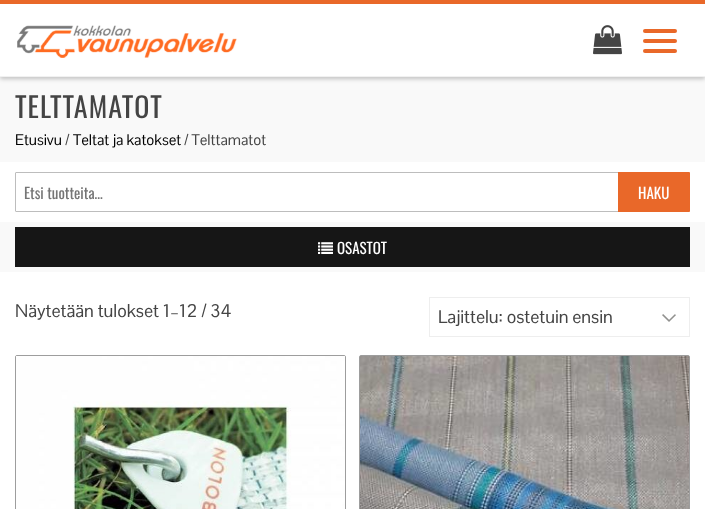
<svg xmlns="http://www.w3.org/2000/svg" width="705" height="509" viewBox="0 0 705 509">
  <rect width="100%" height="100%" fill="rgb(255,255,255)"/>
  <rect x="0" y="77" width="705" height="195" fill="rgb(249,249,249)"/>
  <rect x="0" y="2" width="705" height="77" fill="rgba(0,0,0,0.22)" filter="blur(2px)"/>
  <rect x="0" y="4" width="705" height="72" fill="rgb(255,255,255)"/>
  <rect x="0" y="0" width="705" height="4" fill="rgb(233,104,41)"/>
  <rect x="0" y="76" width="705" height="1" fill="rgb(241,241,241)"/>
  <image x="17" y="25" width="220" height="33" href="pic1.png"/>
  <image x="593" y="25" width="29" height="30" href="pic2.png"/>
  <rect x="643" y="29" width="34" height="4" rx="2" fill="rgb(233,104,41)"/>
  <rect x="643" y="49" width="34" height="4" rx="2" fill="rgb(233,104,41)"/>
  <rect x="643" y="39" width="34" height="4" rx="2" fill="rgb(233,104,41)"/>
  <text x="15" y="118" font-family="Oswald" font-size="28" letter-spacing="1" fill="rgb(68,68,68)">TELTTAMATOT</text>
  <text x="15" y="145" font-family="Pontano Sans" font-size="15" fill="rgb(0,0,0)">Etusivu</text>
  <text x="65" y="145" font-family="Pontano Sans" font-size="15" fill="rgb(68,68,68)">/</text>
  <text x="73" y="145" font-family="Pontano Sans" font-size="15" fill="rgb(0,0,0)">Teltat ja katokset</text>
  <text x="184" y="145" font-family="Pontano Sans" font-size="15" fill="rgb(68,68,68)">/ Telttamatot</text>
  <rect x="0" y="162" width="705" height="60" fill="rgb(255,255,255)"/>
  <rect x="15.5" y="172.5" width="606" height="39" rx="0.5" fill="none" stroke="rgb(189,189,189)"/>
  <text x="24" y="199" font-family="Oswald" font-size="15" fill="rgb(117,117,117)">Etsi tuotteita…</text>
  <path d="M618 172H689C689.5 172 690 172.5 690 173V211C690 211.5 689.5 212 689 212H618Z" fill="rgb(233,104,41)"/>
  <text x="638" y="199" font-family="Oswald" font-size="15" fill="rgb(255,255,255)">HAKU</text>
  <rect x="15" y="227" width="675" height="40" fill="rgb(22,22,22)"/>
  <image x="318" y="242" width="15" height="12" href="pic3.png"/>
  <text x="337" y="254" font-family="Oswald" font-size="15" fill="rgb(255,255,255)">OSASTOT</text>
  <text x="15" y="317" font-family="Pontano Sans" font-size="18" fill="rgb(68,68,68)">Näytetään tulokset 1–12 / 34</text>
  <image x="662" y="314" width="14" height="8" href="pic4.png"/>
  <rect x="429.5" y="297.5" width="260" height="39" fill="none" stroke="rgb(238,238,238)"/>
  <text x="438" y="323" font-family="Pontano Sans" font-size="18" fill="rgb(68,68,68)">Lajittelu: ostetuin ensin</text>
  <rect x="15.5" y="355.5" width="330" height="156" rx="1.5" fill="none" stroke="rgb(157,157,157)"/>
  <image x="16" y="356" width="329" height="153" href="pic5.png"/>
  <rect x="359.5" y="355.5" width="330" height="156" rx="1.5" fill="none" stroke="rgb(157,157,157)"/>
  <image x="360" y="356" width="329" height="153" href="pic6.png"/>
</svg>
